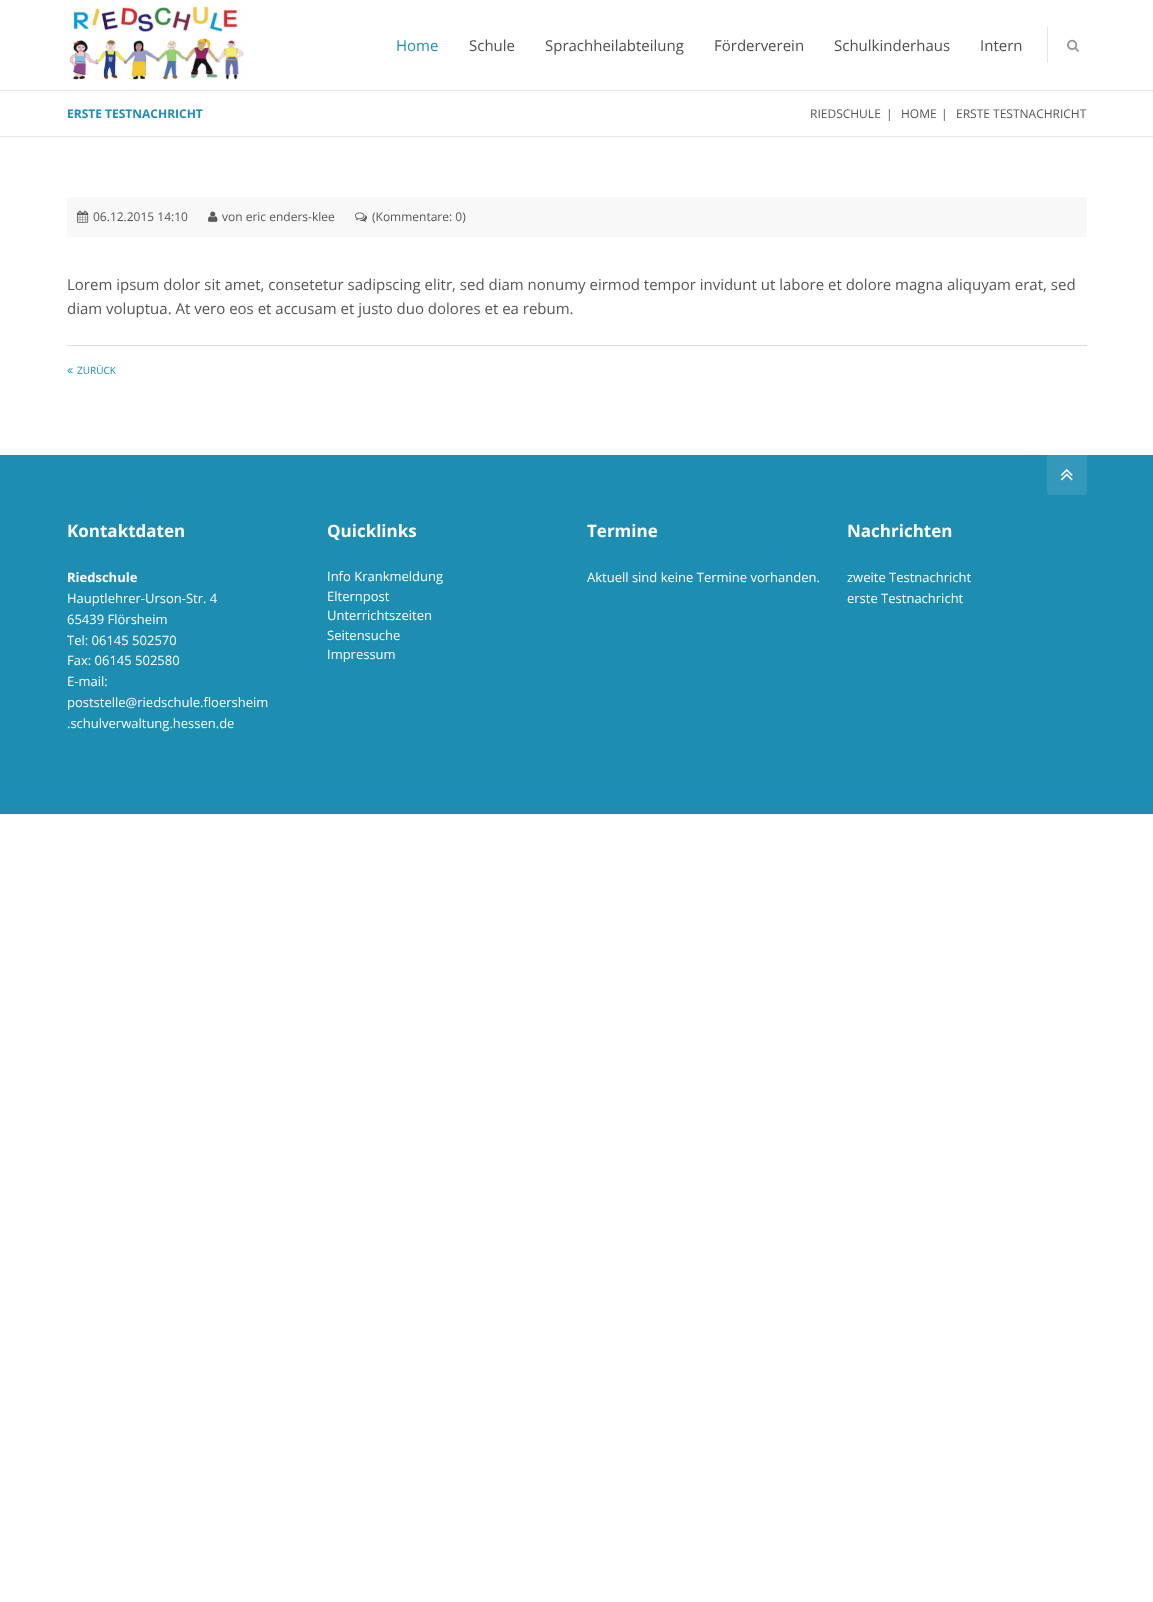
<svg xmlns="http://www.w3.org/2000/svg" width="1153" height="1602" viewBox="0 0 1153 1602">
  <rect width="100%" height="100%" fill="rgb(255,255,255)"/>
  <image x="69" y="6" width="175" height="74" href="pic1.png"/>
  <text x="396" y="51" font-family="Open Sans" font-size="15" fill="rgb(29,141,178)">Home</text>
  <g font-family="Open Sans" font-size="15" fill="rgb(77,79,79)">
    <text x="469" y="51">Schule</text>
    <text x="545" y="51">Sprachheilabteilung</text>
    <text x="714" y="51">Förderverein</text>
    <text x="834" y="51">Schulkinderhaus</text>
    <text x="980" y="51">Intern</text>
  </g>
  <rect x="1047" y="27" width="1" height="36" fill="rgb(230,230,230)"/>
  <image x="1067" y="39" width="12" height="13" href="pic2.png"/>
  <rect x="0" y="90" width="1153" height="1" fill="rgb(230,230,230)"/>
  <text x="67" y="118" font-family="Open Sans" font-size="12" font-weight="bold" fill="rgb(29,141,178)">ERSTE TESTNACHRICHT</text>
  <g font-family="Open Sans" font-size="12" fill="rgb(85,85,85)">
    <text x="810" y="118">RIEDSCHULE</text>
    <text x="886" y="118">|</text>
    <text x="901" y="118">HOME</text>
    <text x="941" y="118">|</text>
    <text x="956" y="118">ERSTE TESTNACHRICHT</text>
  </g>
  <rect x="0" y="136" width="1153" height="1" fill="rgb(230,230,230)"/>
  <rect x="67" y="197" width="1020" height="40" fill="rgb(248,248,248)"/>
  <image x="77" y="210" width="12" height="13" href="pic3.png"/>
  <text x="93" y="221" font-family="Open Sans" font-size="12" fill="rgb(85,85,85)">06.12.2015 14:10</text>
  <image x="208" y="211" width="10" height="11" href="pic4.png"/>
  <text x="222" y="221" font-family="Open Sans" font-size="12" fill="rgb(85,85,85)">von eric enders-klee</text>
  <image x="355" y="212" width="12" height="10" href="pic5.png"/>
  <text x="372" y="221" font-family="Open Sans" font-size="12" fill="rgb(85,85,85)">(Kommentare: 0)</text>
  <g font-family="Open Sans" font-size="15" fill="rgb(85,85,85)">
    <text>
      <tspan x="67" y="290">Lorem ipsum dolor sit amet, consetetur sadipscing elitr, sed diam nonumy eirmod tempor invidunt ut labore et dolore magna aliquyam erat, sed</tspan>
      <tspan x="67" y="314">diam voluptua. At vero eos et accusam et justo duo dolores et ea rebum.</tspan>
    </text>
  </g>
  <rect x="67" y="345" width="1020" height="1" fill="rgb(221,221,221)"/>
  <image x="67" y="368" width="6" height="6" href="pic6.png"/>
  <text x="77" y="374" font-family="Open Sans" font-size="10" fill="rgb(29,141,178)">ZURÜCK</text>
  <rect x="0" y="455" width="1153" height="359" fill="rgb(29,141,178)"/>
  <path d="M1047 455H1087V492C1087 493.5 1085.5 495 1084 495H1050C1048.5 495 1047 493.5 1047 492Z" fill="rgb(52,152,186)"/>
  <image x="1060" y="469" width="13" height="12" href="pic7.png"/>
  <text x="67" y="537" font-family="Open Sans" font-size="17" font-weight="bold" fill="rgb(255,255,255)">Kontaktdaten</text>
  <text x="67" y="582" font-family="Open Sans" font-size="13" font-weight="bold" fill="rgb(255,255,255)">Riedschule</text>
  <g font-family="Open Sans" font-size="13" fill="rgb(255,255,255)">
    <text>
      <tspan x="67" y="603">Hauptlehrer-Urson-Str. 4</tspan>
      <tspan x="67" y="624">65439 Flörsheim</tspan>
      <tspan x="67" y="645">Tel: 06145 502570</tspan>
      <tspan x="67" y="665">Fax: 06145 502580</tspan>
      <tspan x="67" y="686">E-mail:</tspan>
      <tspan x="67" y="707">poststelle@riedschule.floersheim</tspan>
      <tspan x="67" y="728">.schulverwaltung.hessen.de</tspan>
    </text>
  </g>
  <text x="327" y="537" font-family="Open Sans" font-size="17" font-weight="bold" fill="rgb(255,255,255)">Quicklinks</text>
  <g font-family="Open Sans" font-size="13" fill="rgb(255,255,255)">
    <text>
      <tspan x="327" y="581">Info Krankmeldung</tspan>
      <tspan x="327" y="601">Elternpost</tspan>
      <tspan x="327" y="620">Unterrichtszeiten</tspan>
      <tspan x="327" y="640">Seitensuche</tspan>
      <tspan x="327" y="659">Impressum</tspan>
    </text>
  </g>
  <text x="587" y="537" font-family="Open Sans" font-size="17" font-weight="bold" fill="rgb(255,255,255)">Termine</text>
  <text x="587" y="582" font-family="Open Sans" font-size="13" fill="rgb(255,255,255)">Aktuell sind keine Termine vorhanden.</text>
  <text x="847" y="537" font-family="Open Sans" font-size="17" font-weight="bold" fill="rgb(255,255,255)">Nachrichten</text>
  <g font-family="Open Sans" font-size="13" fill="rgb(255,255,255)">
    <text>
      <tspan x="847" y="582">zweite Testnachricht</tspan>
      <tspan x="847" y="603">erste Testnachricht</tspan>
    </text>
  </g>
</svg>
